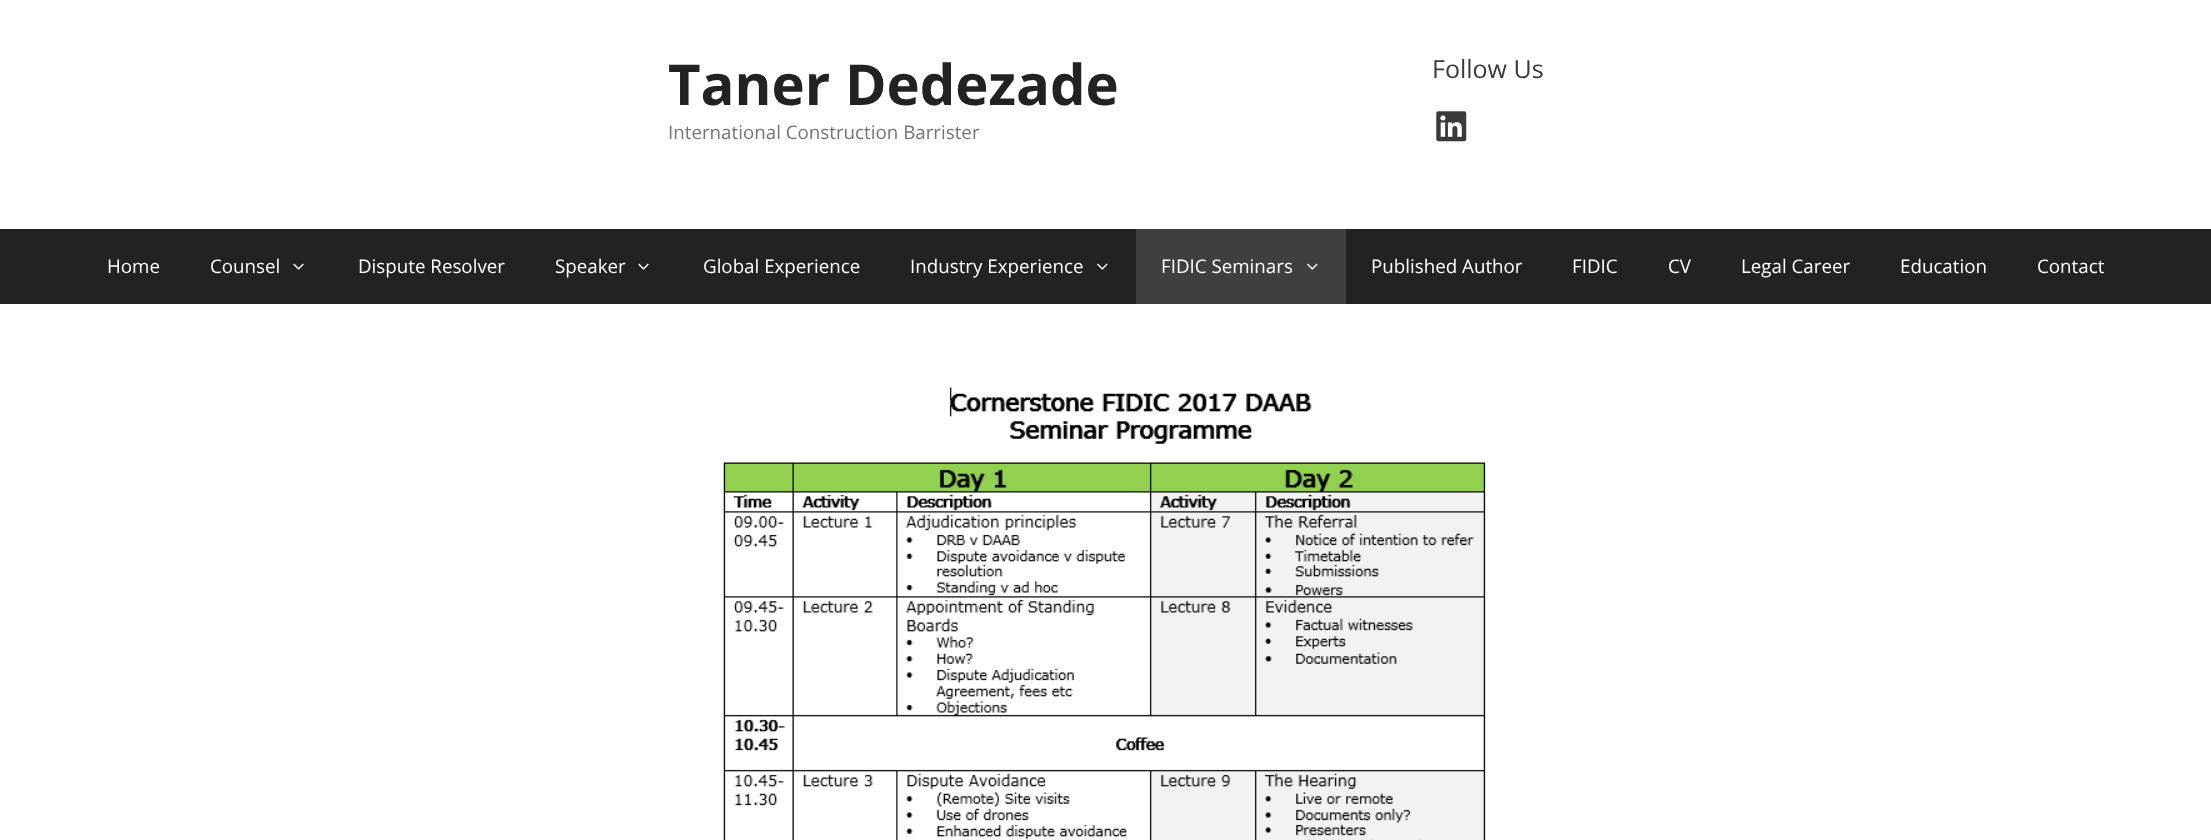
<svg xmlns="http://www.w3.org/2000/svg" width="2211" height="840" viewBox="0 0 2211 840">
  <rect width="100%" height="100%" fill="rgb(34,34,34)"/>
  <rect x="0" y="0" width="2211" height="229" fill="rgb(255,255,255)"/>
  <text x="668" y="105" font-family="Open Sans" font-size="56.25" font-weight="bold" fill="rgb(34,34,34)">Taner Dedezade</text>
  <text x="668" y="139" font-family="Open Sans" font-size="18.75" fill="rgb(117,117,117)">International Construction Barrister</text>
  <text x="1432" y="78" font-family="Open Sans" font-size="25" fill="rgb(58,58,58)">Follow Us</text>
  <image x="1436" y="111" width="31" height="31" href="pic1.png"/>
  <g font-family="Open Sans" font-size="18.75" fill="rgb(255,255,255)">
    <text x="107" y="273">Home</text>
    <text x="210" y="273">Counsel</text>
  </g>
  <image x="293" y="263" width="11" height="7" href="pic2.png"/>
  <g font-family="Open Sans" font-size="18.75" fill="rgb(255,255,255)">
    <text x="358" y="273">Dispute Resolver</text>
    <text x="555" y="273">Speaker</text>
  </g>
  <image x="638" y="263" width="11" height="7" href="pic2.png"/>
  <g font-family="Open Sans" font-size="18.75" fill="rgb(255,255,255)">
    <text x="703" y="273">Global Experience</text>
    <text x="910" y="273">Industry Experience</text>
  </g>
  <image x="1097" y="263" width="11" height="7" href="pic3.png"/>
  <rect x="1136" y="229" width="210" height="75" fill="rgb(63,63,63)"/>
  <text x="1161" y="273" font-family="Open Sans" font-size="18.75" fill="rgb(255,255,255)">FIDIC Seminars</text>
  <image x="1307" y="263" width="11" height="7" href="pic4.png"/>
  <g font-family="Open Sans" font-size="18.75" fill="rgb(255,255,255)">
    <text x="1371" y="273">Published Author</text>
    <text x="1572" y="273">FIDIC</text>
    <text x="1668" y="273">CV</text>
    <text x="1741" y="273">Legal Career</text>
    <text x="1900" y="273">Education</text>
    <text x="2037" y="273">Contact</text>
  </g>
  <rect x="0" y="304" width="2211" height="536" fill="rgb(255,255,255)"/>
  <image x="723" y="387" width="763" height="453" href="pic5.png"/>
</svg>
